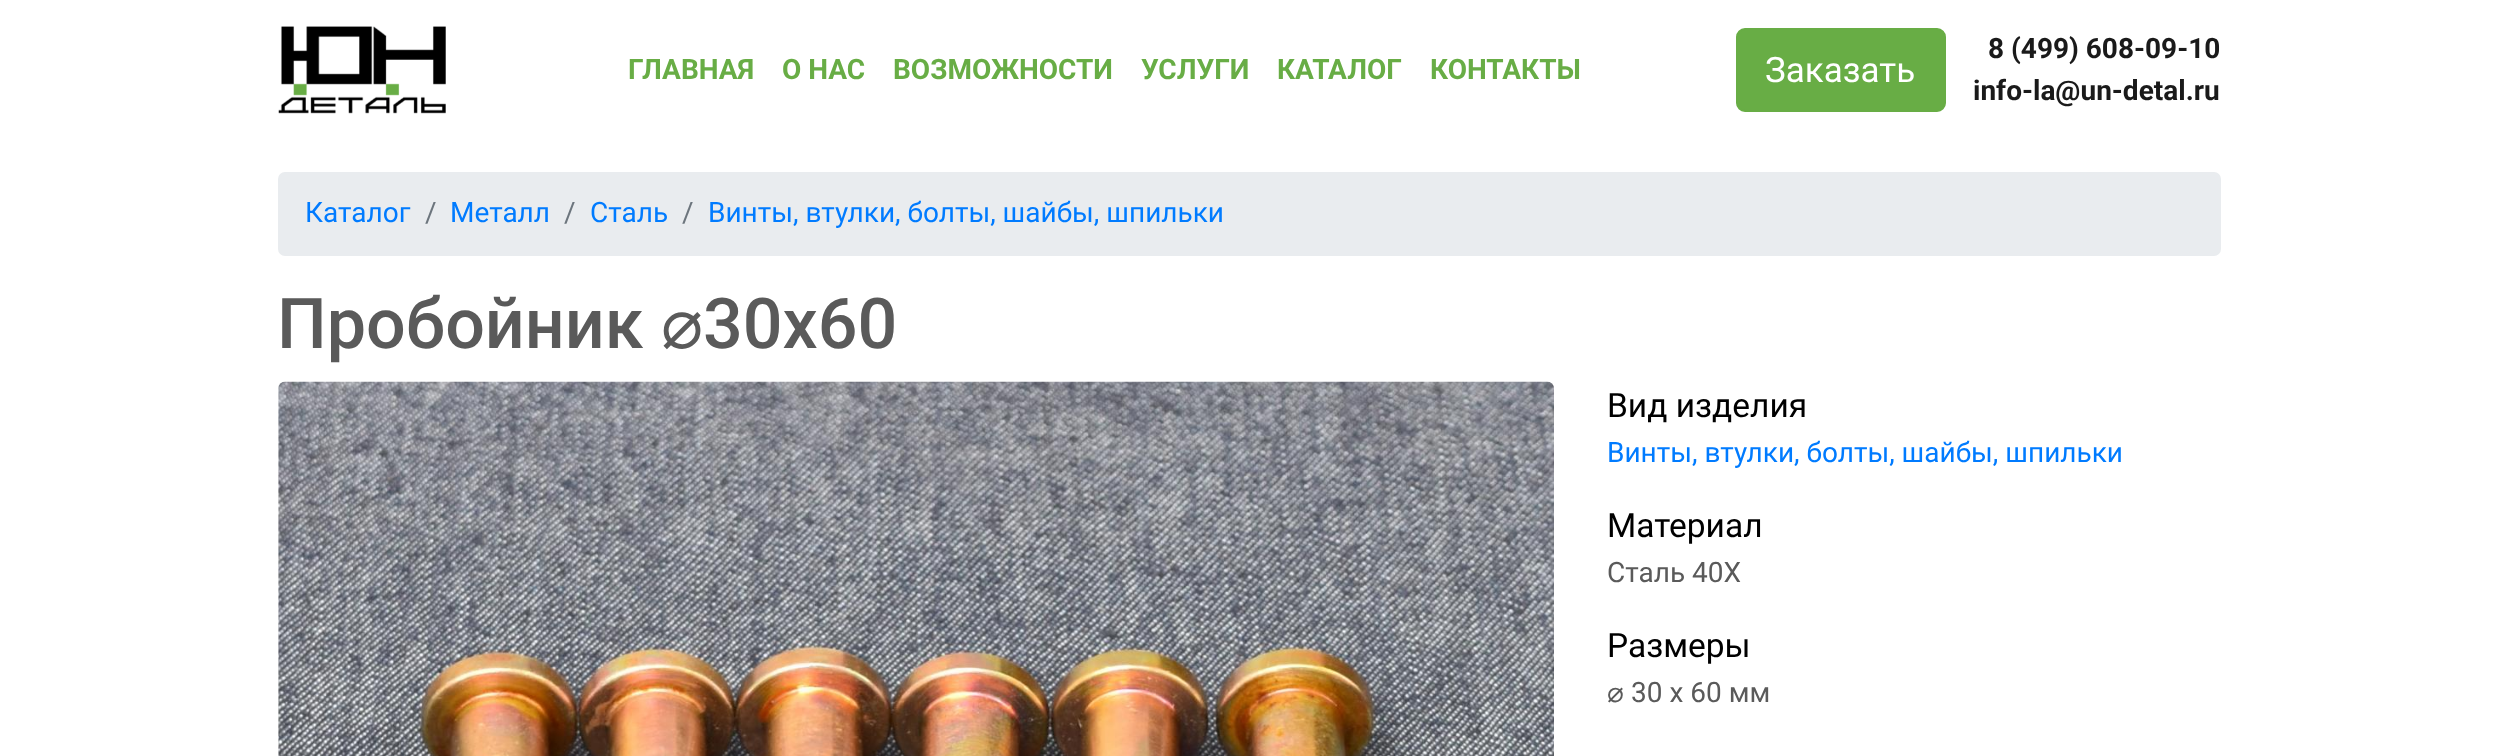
<svg xmlns="http://www.w3.org/2000/svg" width="2496" height="756" viewBox="0 0 2496 756">
  <rect width="100%" height="100%" fill="rgb(255,255,255)"/>
  <image x="278" y="26" width="168" height="88" href="pic1.png"/>
  <g font-family="Roboto" font-size="28" font-weight="bold" fill="rgb(104,173,69)">
    <text x="628" y="79">ГЛАВНАЯ</text>
    <text x="782" y="79">О НАС</text>
    <text x="893" y="79">ВОЗМОЖНОСТИ</text>
    <text x="1141" y="79">УСЛУГИ</text>
    <text x="1277" y="79">КАТАЛОГ</text>
    <text x="1430" y="79">КОНТАКТЫ</text>
  </g>
  <rect x="1737" y="29" width="208" height="82" rx="8" fill="rgb(104,173,69)" stroke="rgb(104,173,69)" stroke-width="2"/>
  <text x="1765" y="82" font-family="Roboto" font-size="35" fill="rgb(255,255,255)">Заказать</text>
  <g font-family="Roboto" font-size="28" font-weight="bold" fill="rgb(26,26,26)">
    <text x="1988" y="58">8 (499) 608-09-10</text>
    <text x="1973" y="100">info-la@un-detal.ru</text>
  </g>
  <rect x="278" y="172" width="1943" height="84" rx="7" fill="rgb(233,236,239)"/>
  <text x="305" y="222" font-family="Roboto" font-size="28" fill="rgb(0,123,255)">Каталог</text>
  <text x="425" y="222" font-family="Roboto" font-size="28" fill="rgb(108,117,125)">/</text>
  <text x="450" y="222" font-family="Roboto" font-size="28" fill="rgb(0,123,255)">Металл</text>
  <text x="564" y="222" font-family="Roboto" font-size="28" fill="rgb(108,117,125)">/</text>
  <text x="590" y="222" font-family="Roboto" font-size="28" fill="rgb(0,123,255)">Сталь</text>
  <text x="682" y="222" font-family="Roboto" font-size="28" fill="rgb(108,117,125)">/</text>
  <text x="708" y="222" font-family="Roboto" font-size="28" fill="rgb(0,123,255)">Винты, втулки, болты, шайбы, шпильки</text>
  <text x="277" y="348" font-family="Roboto" font-size="70" font-weight="500" fill="rgb(90,90,90)">Пробойник</text>
  <text x="661" y="348" font-family="DejaVu Sans" font-size="70" fill="rgb(90,90,90)">⌀</text>
  <text x="703" y="348" font-family="Roboto" font-size="70" font-weight="500" fill="rgb(90,90,90)">30x60</text>
  <image x="278" y="381" width="1276" height="375" href="pic2.png"/>
  <text x="1607" y="417" font-family="Roboto" font-size="33.5" fill="rgb(0,0,0)">Вид изделия</text>
  <text x="1607" y="462" font-family="Roboto" font-size="28" fill="rgb(0,123,255)">Винты, втулки, болты, шайбы, шпильки</text>
  <text x="1607" y="537" font-family="Roboto" font-size="33.5" fill="rgb(0,0,0)">Материал</text>
  <text x="1607" y="582" font-family="Roboto" font-size="28" fill="rgb(90,90,90)">Сталь 40Х</text>
  <text x="1607" y="657" font-family="Roboto" font-size="33.5" fill="rgb(0,0,0)">Размеры</text>
  <text x="1607" y="702" font-family="DejaVu Sans" font-size="28" fill="rgb(90,90,90)">⌀</text>
  <text x="1631" y="702" font-family="Roboto" font-size="28" fill="rgb(90,90,90)">30 x 60 мм</text>
</svg>
